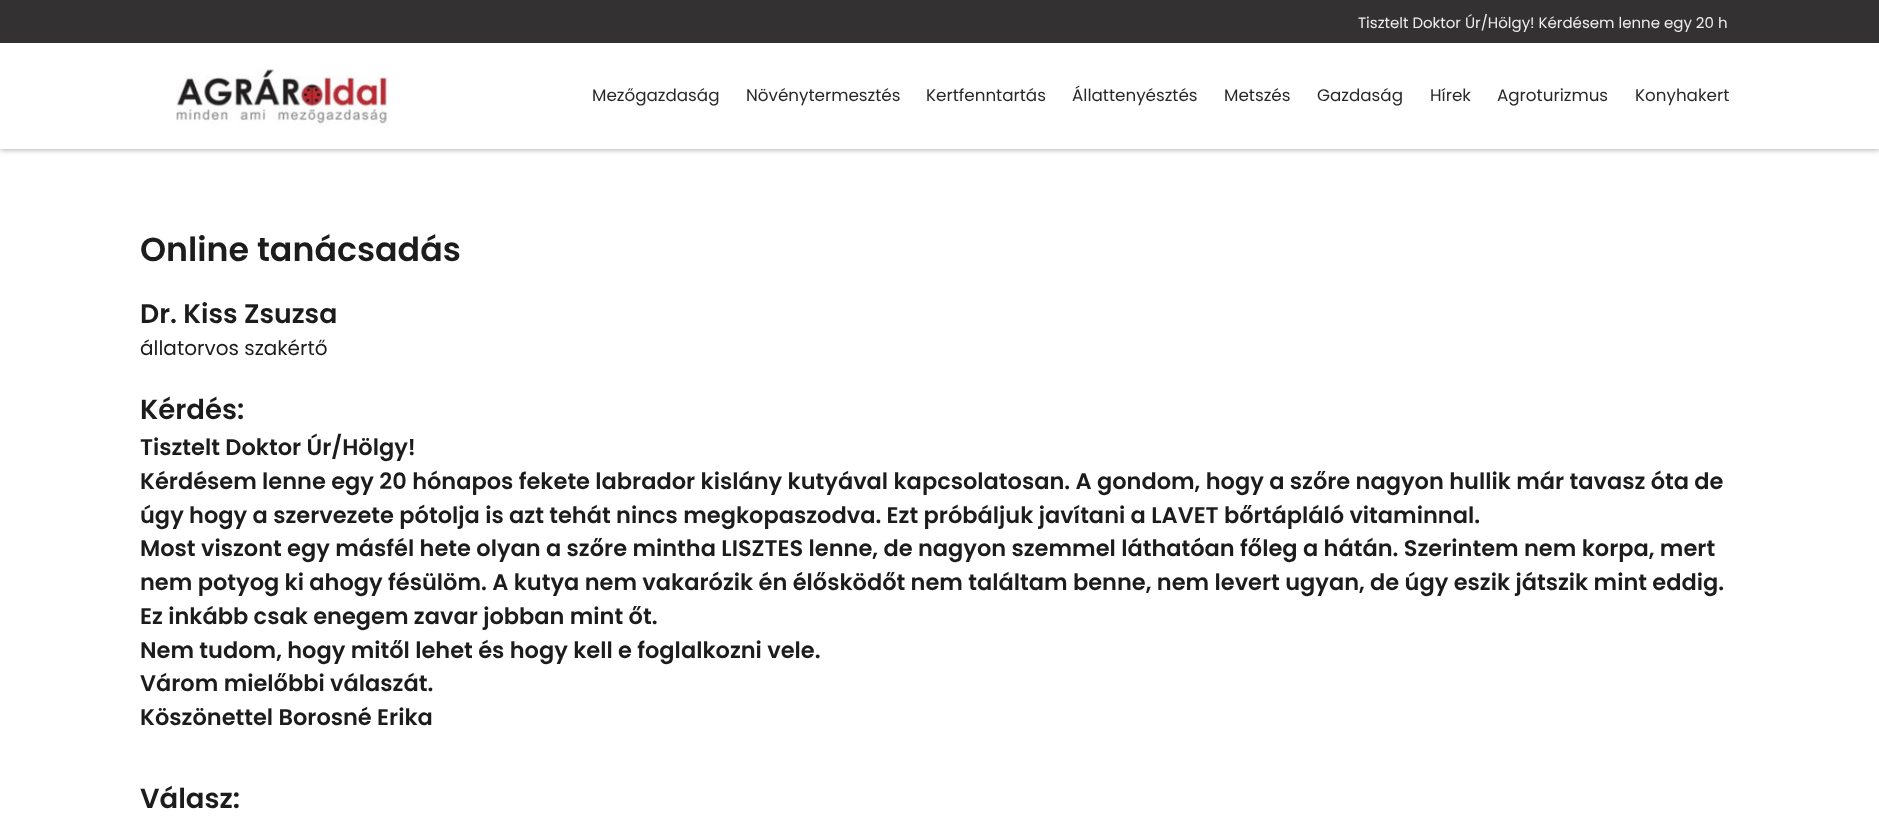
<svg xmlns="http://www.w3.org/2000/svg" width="1879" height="817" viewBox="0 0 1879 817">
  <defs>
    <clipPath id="clip1"><path d="M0 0H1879V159H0ZM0 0H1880V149H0Z" clip-rule="evenodd"/></clipPath>
  </defs>
  <rect width="100%" height="100%" fill="rgb(255,255,255)"/>
  <g clip-path="url(#clip1)">
    <rect x="0" y="0" width="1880" height="149" fill="rgba(0,0,0,0.4)" filter="blur(3px)"/>
  </g>
  <rect x="0" y="0" width="1879" height="43" fill="rgb(51,49,50)"/>
  <text x="1358" y="28" font-family="Poppins" font-size="15" fill="rgb(237,237,237)">Tisztelt Doktor Úr/Hölgy! Kérdésem lenne egy 20 h</text>
  <image x="176" y="69" width="214" height="58" href="pic1.png"/>
  <g font-family="Poppins" font-size="16.75" fill="rgb(39,41,40)">
    <text x="592" y="101">Mezőgazdaság</text>
    <text x="746" y="101">Növénytermesztés</text>
    <text x="926" y="101">Kertfenntartás</text>
    <text x="1072" y="101">Állattenyésztés</text>
    <text x="1224" y="101">Metszés</text>
    <text x="1317" y="101">Gazdaság</text>
    <text x="1430" y="101">Hírek</text>
    <text x="1497" y="101">Agroturizmus</text>
    <text x="1635" y="101">Konyhakert</text>
  </g>
  <text x="140" y="261" font-family="Poppins" font-size="33.25" font-weight="600" fill="rgb(28,28,28)">Online tanácsadás</text>
  <text x="140" y="323" font-family="Poppins" font-size="26.75" font-weight="600" fill="rgb(28,28,28)">Dr. Kiss Zsuzsa</text>
  <text x="140" y="355" font-family="Poppins" font-size="20" fill="rgb(28,28,28)">állatorvos szakértő</text>
  <text x="140" y="419" font-family="Poppins" font-size="27.5" font-weight="600" fill="rgb(28,28,28)">Kérdés:</text>
  <g font-family="Poppins" font-size="22.5" font-weight="600" fill="rgb(28,28,28)">
    <text>
      <tspan x="140" y="455">Tisztelt Doktor Úr/Hölgy!</tspan>
      <tspan x="140" y="489">Kérdésem lenne egy 20 hónapos fekete labrador kislány kutyával kapcsolatosan. A gondom, hogy a szőre nagyon hullik már tavasz óta de</tspan>
      <tspan x="140" y="523">úgy hogy a szervezete pótolja is azt tehát nincs megkopaszodva. Ezt próbáljuk javítani a LAVET bőrtápláló vitaminnal.</tspan>
      <tspan x="140" y="556">Most viszont egy másfél hete olyan a szőre mintha LISZTES lenne, de nagyon szemmel láthatóan főleg a hátán. Szerintem nem korpa, mert</tspan>
      <tspan x="140" y="590">nem potyog ki ahogy fésülöm. A kutya nem vakarózik én élősködőt nem találtam benne, nem levert ugyan, de úgy eszik játszik mint eddig.</tspan>
      <tspan x="140" y="624">Ez inkább csak enegem zavar jobban mint őt.</tspan>
      <tspan x="140" y="658">Nem tudom, hogy mitől lehet és hogy kell e foglalkozni vele.</tspan>
      <tspan x="140" y="691">Várom mielőbbi válaszát.</tspan>
      <tspan x="140" y="725">Köszönettel Borosné Erika</tspan>
    </text>
  </g>
  <text x="140" y="808" font-family="Poppins" font-size="27.5" font-weight="600" fill="rgb(28,28,28)">Válasz:</text>
</svg>
